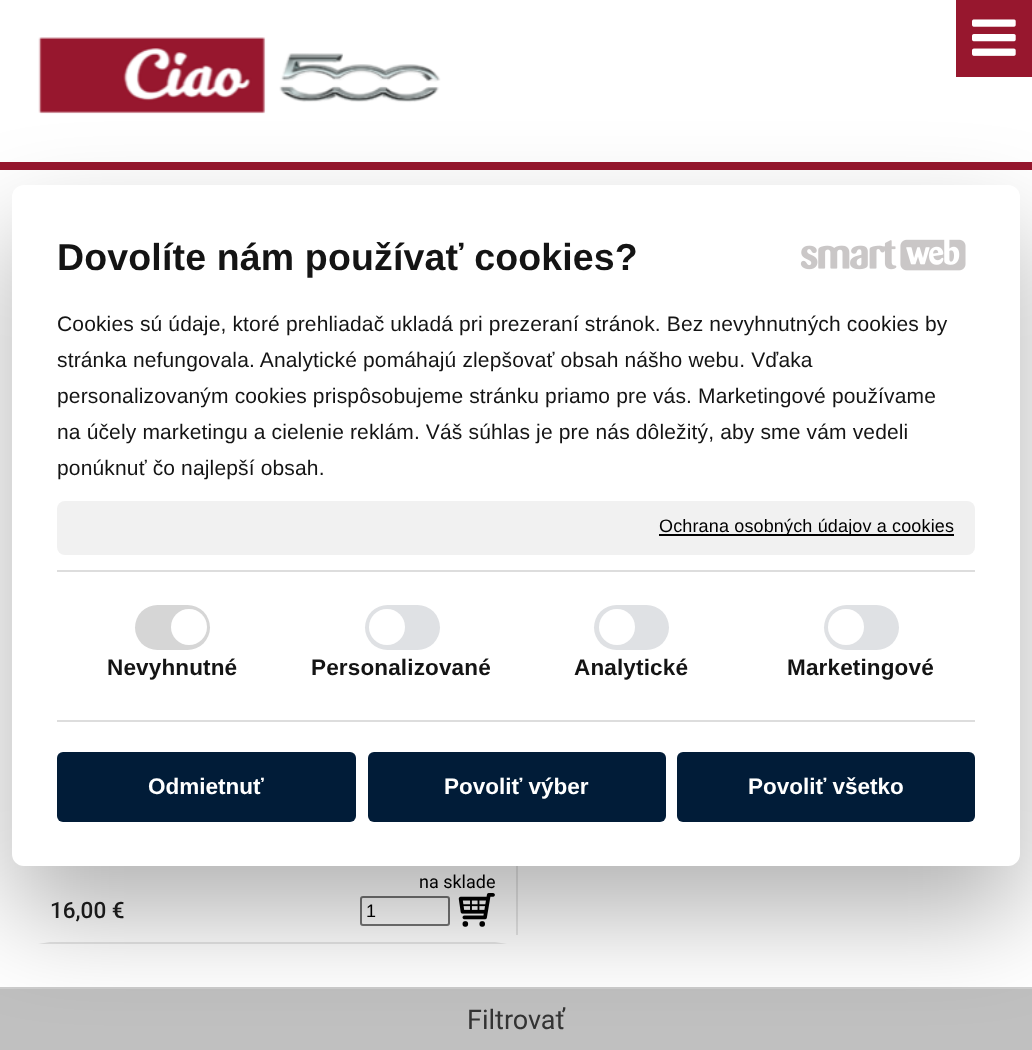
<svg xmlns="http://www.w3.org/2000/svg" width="1032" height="1050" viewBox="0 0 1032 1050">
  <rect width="100%" height="100%" fill="rgb(255,255,255)"/>
  <rect x="956" y="0" width="76" height="77" fill="rgb(151,23,46)"/>
  <image x="972" y="19" width="44" height="37" href="pic1.png"/>
  <rect x="0" y="162" width="1032" height="8" fill="rgb(151,23,46)"/>
  <image x="38" y="37" width="403" height="77" href="pic2.png"/>
  <path d="M507 944H38L50 942H495Z" fill="rgb(230,230,230)"/>
  <rect x="361" y="897" width="88" height="28" rx="2" fill="none" stroke="rgb(118,118,118)" stroke-width="2"/>
  <image x="458" y="893" width="37" height="34" href="pic5.png"/>
  <rect x="516" y="866" width="2" height="69" fill="rgb(230,230,230)"/>
  <rect x="0" y="989" width="1032" height="61" fill="rgb(192,192,192)"/>
  <rect x="0" y="987" width="1032" height="2" fill="rgb(205,205,205)"/>
  <rect x="12" y="233" width="1008" height="681" rx="12" fill="rgba(0,0,0,0.3)" filter="blur(51px)"/>
  <rect x="12" y="185" width="1008" height="681" rx="12" fill="rgb(255,255,255)"/>
  <text x="57" y="270" font-family="Liberation Sans" font-size="37.5" font-weight="bold" letter-spacing="0.15" fill="rgb(20,20,20)">Dovolíte nám používať cookies?</text>
  <image x="800" y="240" width="97" height="30" href="pic3.png"/>
  <image x="900" y="239" width="66" height="32" href="pic4.png"/>
  <g font-family="Liberation Sans" font-size="21" letter-spacing="0.15" fill="rgb(20,20,20)">
    <text>
      <tspan x="57" y="331">Cookies sú údaje, ktoré prehliadač ukladá pri prezeraní stránok. Bez nevyhnutných cookies by</tspan>
      <tspan x="57" y="367">stránka nefungovala. Analytické pomáhajú zlepšovať obsah nášho webu. Vďaka</tspan>
      <tspan x="57" y="403">personalizovaným cookies prispôsobujeme stránku priamo pre vás. Marketingové používame</tspan>
      <tspan x="57" y="439">na účely marketingu a cielenie reklám. Váš súhlas je pre nás dôležitý, aby sme vám vedeli</tspan>
      <tspan x="57" y="475">ponúknuť čo najlepší obsah.</tspan>
    </text>
  </g>
  <rect x="57" y="501" width="918" height="54" rx="8" fill="rgb(241,241,241)"/>
  <rect x="659" y="534" width="295" height="2" fill="rgb(0,0,0)"/>
  <text x="659" y="532" font-family="Liberation Sans" font-size="18" letter-spacing="0.15" fill="rgb(0,0,0)">Ochrana osobných údajov a cookies</text>
  <rect x="57" y="570" width="918" height="2" fill="rgb(221,221,221)"/>
  <rect x="57" y="720" width="918" height="2" fill="rgb(221,221,221)"/>
  <rect x="135" y="605" width="75" height="45" rx="22.5" fill="rgb(214,214,214)"/>
  <circle cx="189" cy="627" r="18" fill="rgb(255,255,255)"/>
  <text x="107" y="675" font-family="Liberation Sans" font-size="22.5" font-weight="bold" letter-spacing="0.15" fill="rgb(20,20,20)">Nevyhnutné</text>
  <rect x="365" y="605" width="75" height="45" rx="22.5" fill="rgb(223,225,228)"/>
  <circle cx="387" cy="627" r="18" fill="rgb(255,255,255)"/>
  <text x="311" y="675" font-family="Liberation Sans" font-size="22.5" font-weight="bold" letter-spacing="0.15" fill="rgb(20,20,20)">Personalizované</text>
  <rect x="594" y="605" width="75" height="45" rx="22.5" fill="rgb(223,225,228)"/>
  <circle cx="617" cy="627" r="18" fill="rgb(255,255,255)"/>
  <text x="574" y="675" font-family="Liberation Sans" font-size="22.5" font-weight="bold" letter-spacing="0.15" fill="rgb(20,20,20)">Analytické</text>
  <rect x="824" y="605" width="75" height="45" rx="22.5" fill="rgb(223,225,228)"/>
  <circle cx="846" cy="627" r="18" fill="rgb(255,255,255)"/>
  <text x="787" y="675" font-family="Liberation Sans" font-size="22.5" font-weight="bold" letter-spacing="0.15" fill="rgb(20,20,20)">Marketingové</text>
  <rect x="57" y="752" width="299" height="70" rx="6" fill="rgb(1,28,56)"/>
  <text x="148" y="794" font-family="Liberation Sans" font-size="22.5" font-weight="bold" fill="rgb(255,255,255)">Odmietnuť</text>
  <rect x="368" y="752" width="298" height="70" rx="6" fill="rgb(1,28,56)"/>
  <text x="444" y="794" font-family="Liberation Sans" font-size="22.5" font-weight="bold" fill="rgb(255,255,255)">Povoliť výber</text>
  <rect x="677" y="752" width="298" height="70" rx="6" fill="rgb(1,28,56)"/>
  <text x="748" y="794" font-family="Liberation Sans" font-size="22.5" font-weight="bold" fill="rgb(255,255,255)">Povoliť všetko</text>
  <text x="419" y="888" font-family="Roboto" font-size="18" fill="rgb(0,0,0)">na sklade</text>
  <text x="50" y="918" font-family="Roboto" font-size="22.5" font-weight="500" fill="rgb(26,26,26)">16,00 €</text>
  <text x="366" y="917" font-family="Liberation Sans" font-size="18" fill="rgb(0,0,0)">1</text>
  <text x="467" y="1029" font-family="Roboto" font-size="27" fill="rgb(51,51,51)">Filtrovať</text>
</svg>
